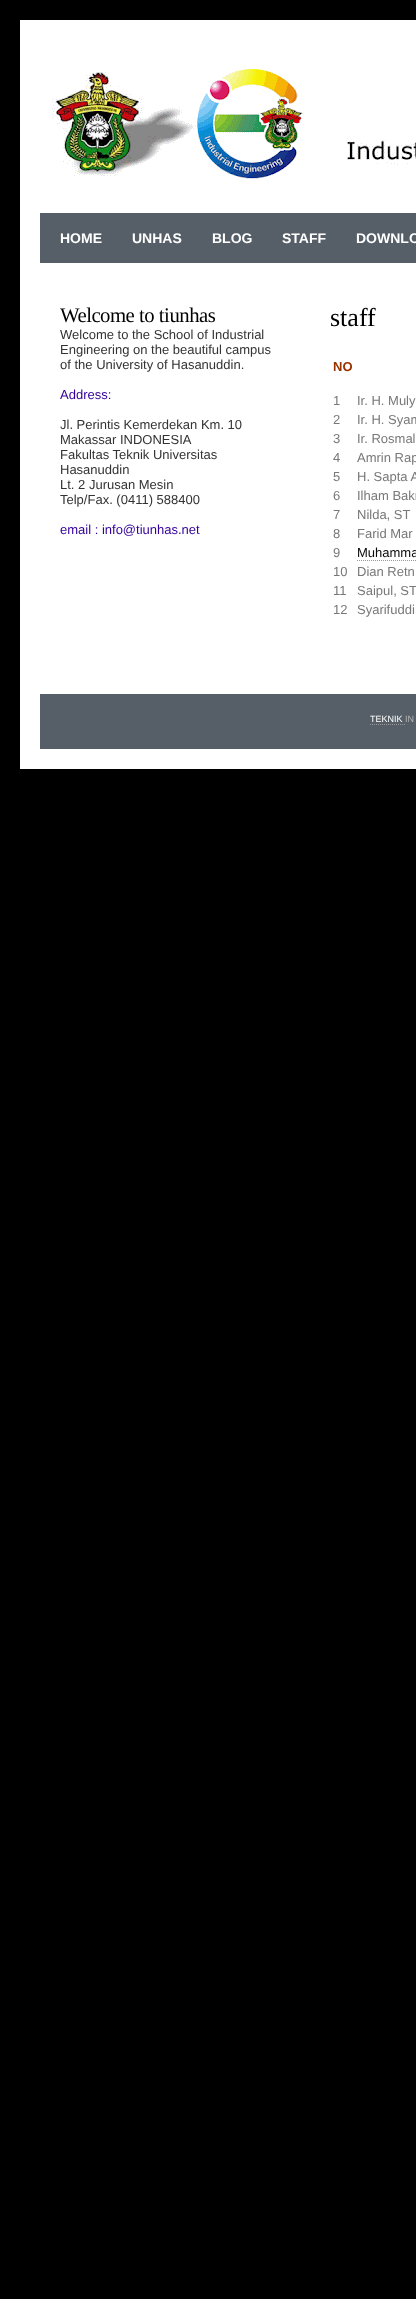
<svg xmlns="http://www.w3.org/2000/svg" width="416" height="2299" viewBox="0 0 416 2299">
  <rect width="100%" height="100%" fill="rgb(0,0,0)"/>
  <rect x="20" y="20" width="396" height="749" fill="rgb(255,255,255)"/>
  <image x="52" y="69" width="364" height="110" href="pic1.png"/>
  <rect x="40" y="213" width="376" height="50" fill="rgb(86,95,104)"/>
  <g font-family="Liberation Sans" font-size="14" font-weight="bold" fill="rgb(255,255,255)">
    <text x="60" y="243">HOME</text>
    <text x="132" y="243">UNHAS</text>
    <text x="212" y="243">BLOG</text>
    <text x="282" y="243">STAFF</text>
    <text x="356" y="243">DOWNLO</text>
  </g>
  <text x="60" y="322" font-family="Liberation Serif" font-size="20.75" letter-spacing="-0.5" fill="rgb(0,0,0)">Welcome to tiunhas</text>
  <g font-family="Liberation Sans" font-size="13" fill="rgb(51,51,51)">
    <text>
      <tspan x="60" y="339">Welcome to the School of Industrial</tspan>
      <tspan x="60" y="354">Engineering on the beautiful campus</tspan>
      <tspan x="60" y="369">of the University of Hasanuddin.</tspan>
    </text>
  </g>
  <text x="60" y="399" font-family="Liberation Sans" font-size="13" fill="rgb(51,0,153)">Address:</text>
  <g font-family="Liberation Sans" font-size="13" fill="rgb(51,51,51)">
    <text>
      <tspan x="60" y="429">Jl. Perintis Kemerdekan Km. 10</tspan>
      <tspan x="60" y="444">Makassar INDONESIA</tspan>
      <tspan x="60" y="459">Fakultas Teknik Universitas</tspan>
      <tspan x="60" y="474">Hasanuddin</tspan>
      <tspan x="60" y="489">Lt. 2 Jurusan Mesin</tspan>
      <tspan x="60" y="504">Telp/Fax. (0411) 588400</tspan>
    </text>
  </g>
  <text x="60" y="534" font-family="Liberation Sans" font-size="13" fill="rgb(51,0,153)">email : info@tiunhas.net</text>
  <text x="330" y="326" font-family="Liberation Serif" font-size="26" fill="rgb(0,0,0)">staff</text>
  <text x="333" y="371" font-family="Liberation Sans" font-size="13" font-weight="bold" fill="rgb(153,51,0)">NO</text>
  <g font-family="Liberation Sans" font-size="13" fill="rgb(120,120,120)">
    <text x="333" y="405">1</text>
    <text x="357" y="405">Ir. H. Muly</text>
    <text x="333" y="424">2</text>
    <text x="357" y="424">Ir. H. Syam</text>
    <text x="333" y="443">3</text>
    <text x="357" y="443">Ir. Rosmal</text>
    <text x="333" y="462">4</text>
    <text x="357" y="462">Amrin Rap</text>
    <text x="333" y="481">5</text>
    <text x="357" y="481">H. Sapta A</text>
    <text x="333" y="500">6</text>
    <text x="357" y="500">Ilham Bakr</text>
    <text x="333" y="519">7</text>
    <text x="357" y="519">Nilda, ST</text>
    <text x="333" y="538">8</text>
    <text x="357" y="538">Farid Mar</text>
    <text x="333" y="557">9</text>
  </g>
  <text x="357" y="557" font-family="Liberation Sans" font-size="13" fill="rgb(10,10,10)">Muhamma</text>
  <path d="M357 560.5H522" fill="none" stroke="rgb(153,153,153)" stroke-dasharray="1 1"/>
  <g font-family="Liberation Sans" font-size="13" fill="rgb(120,120,120)">
    <text x="333" y="576">10</text>
    <text x="357" y="576">Dian Retn</text>
    <text x="333" y="595">11</text>
    <text x="357" y="595">Saipul, ST</text>
    <text x="333" y="614">12</text>
    <text x="357" y="614">Syarifuddi</text>
  </g>
  <rect x="40" y="694" width="376" height="55" fill="rgb(86,95,104)"/>
  <text x="370" y="722" font-family="Liberation Sans" font-size="9" fill="rgb(255,255,255)">TEKNIK</text>
  <path d="M370 724.5H405" fill="none" stroke="rgb(153,153,153)" stroke-dasharray="1 1"/>
  <text x="405" y="722" font-family="Liberation Sans" font-size="9" fill="rgb(178,178,178)">IN</text>
</svg>
